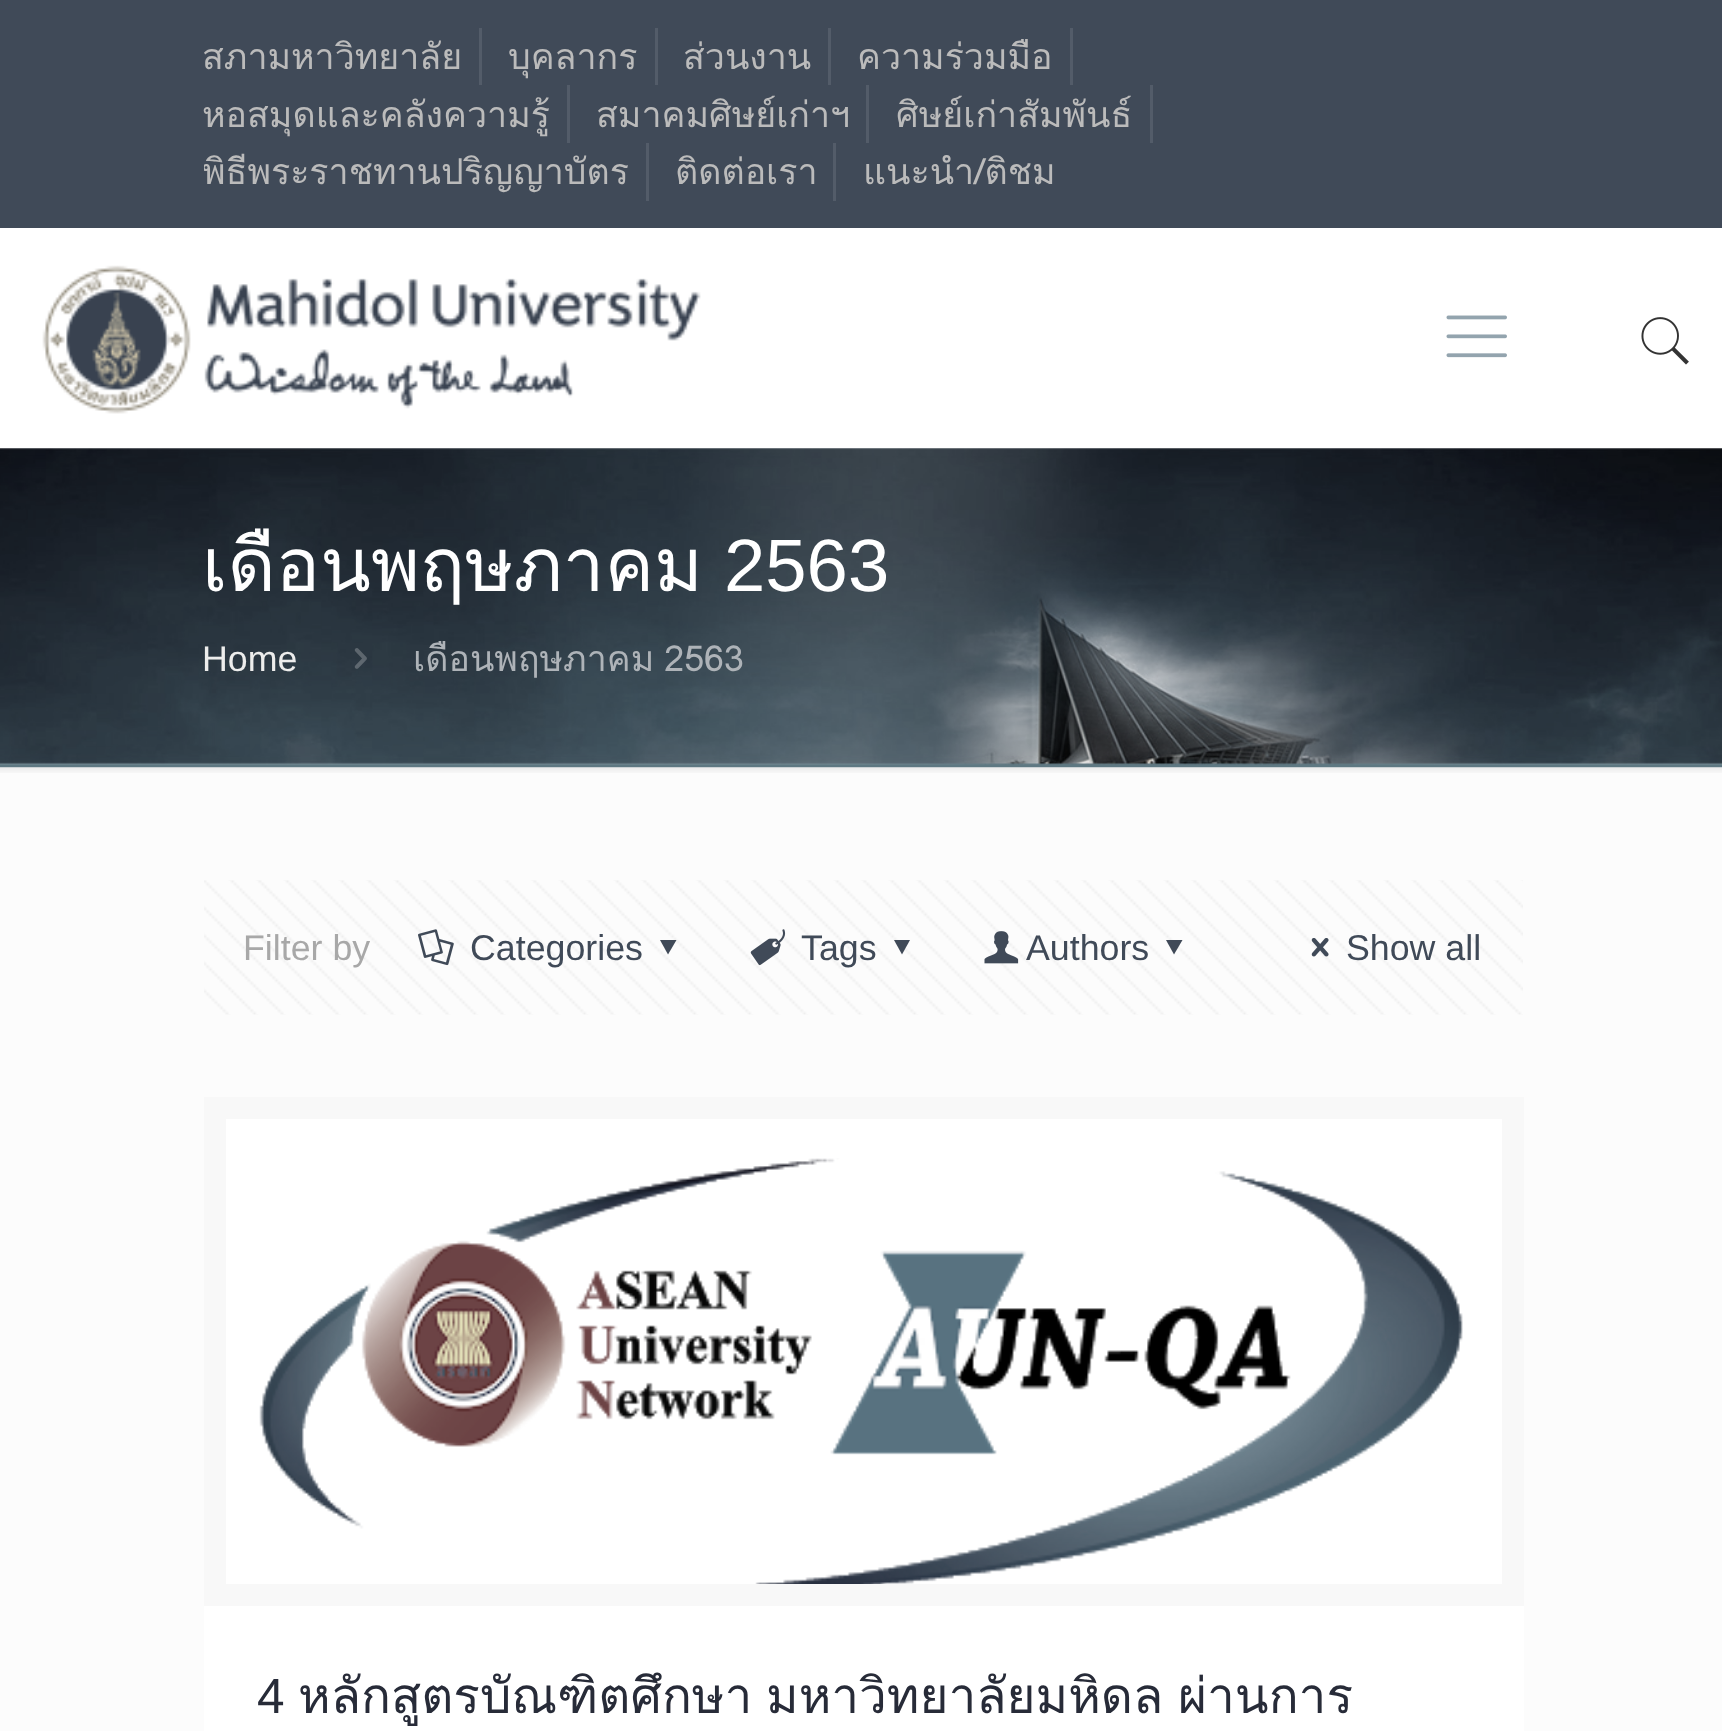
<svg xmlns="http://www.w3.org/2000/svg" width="1722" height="1731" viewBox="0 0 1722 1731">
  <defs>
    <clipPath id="clip1"><rect x="204" y="0" width="1320" height="201"/></clipPath>
  </defs>
  <rect width="100%" height="100%" fill="rgb(252,252,252)"/>
  <rect x="0" y="228" width="1722" height="221" fill="rgb(255,255,255)"/>
  <rect x="0" y="0" width="1722" height="228" fill="rgb(64,74,88)"/>
  <rect x="479" y="28" width="3" height="57" fill="rgb(83,92,105)"/>
  <text x="202" y="69" font-family="Loma" font-size="35.75" fill="rgb(187,187,187)">สภามหาวิทยาลัย</text>
  <rect x="655" y="28" width="3" height="57" fill="rgb(83,92,105)"/>
  <text x="508" y="69" font-family="Loma" font-size="35.75" fill="rgb(187,187,187)">บุคลากร</text>
  <rect x="828" y="28" width="3" height="57" fill="rgb(83,92,105)"/>
  <text x="683" y="69" font-family="Loma" font-size="35.75" fill="rgb(187,187,187)">ส่วนงาน</text>
  <rect x="1070" y="28" width="3" height="57" fill="rgb(83,92,105)"/>
  <text x="857" y="69" font-family="Loma" font-size="35.75" fill="rgb(187,187,187)">ความร่วมมือ</text>
  <rect x="567" y="85" width="3" height="58" fill="rgb(83,92,105)"/>
  <text x="202" y="127" font-family="Loma" font-size="35.75" fill="rgb(187,187,187)">หอสมุดและคลังความรู้</text>
  <rect x="866" y="85" width="3" height="58" fill="rgb(83,92,105)"/>
  <text x="596" y="127" font-family="Loma" font-size="35.75" fill="rgb(187,187,187)">สมาคมศิษย์เก่าฯ</text>
  <rect x="1150" y="85" width="3" height="58" fill="rgb(83,92,105)"/>
  <text x="896" y="127" font-family="Loma" font-size="35.75" fill="rgb(187,187,187)">ศิษย์เก่าสัมพันธ์</text>
  <rect x="646" y="143" width="3" height="58" fill="rgb(83,92,105)"/>
  <g clip-path="url(#clip1)">
    <text x="202" y="184" font-family="Loma" font-size="35.75" fill="rgb(187,187,187)">พิธีพระราชทานปริญญาบัตร</text>
  </g>
  <rect x="833" y="143" width="3" height="58" fill="rgb(83,92,105)"/>
  <g font-family="Loma" font-size="35.75" fill="rgb(187,187,187)">
    <text x="675" y="184">ติดต่อเรา</text>
    <text x="863" y="184">แนะนำ/ติชม</text>
  </g>
  <image x="42" y="265" width="659" height="149" href="pic1.png"/>
  <image x="1446" y="315" width="61" height="43" href="pic2.png"/>
  <image x="1641" y="317" width="48" height="48" href="pic3.png"/>
  <image x="0" y="448" width="1722" height="320" href="pic4.png"/>
  <text x="202" y="591" font-family="Loma" font-size="74.25" fill="rgb(255,255,255)">เดือนพฤษภาคม</text>
  <text x="724" y="591" font-family="Liberation Sans" font-size="74.25" fill="rgb(255,255,255)">2563</text>
  <text x="202" y="671" font-family="Liberation Sans" font-size="35.75" fill="rgb(237,237,236)">Home</text>
  <image x="354" y="648" width="13" height="21" href="pic5.png"/>
  <text x="413" y="671" word-spacing="-2" font-family="Loma" font-size="35.75" fill="rgb(174,179,184)">เดือนพฤษภาคม 2563</text>
  <image x="0" y="767" width="1722" height="6" href="pic6.png"/>
  <image x="204" y="880" width="1319" height="135" href="pic7.png"/>
  <text x="243" y="960" font-family="Liberation Sans" font-size="35.75" fill="rgb(168,168,168)">Filter by</text>
  <image x="418" y="929" width="36" height="37" href="pic8.png"/>
  <text x="470" y="960" font-family="Liberation Sans" font-size="35.75" fill="rgb(64,74,88)">Categories</text>
  <path d="M676.5 940L668 954.5L660 940Z" fill="rgb(64,74,88)"/>
  <image x="750" y="929" width="36" height="37" href="pic9.png"/>
  <text x="801" y="960" font-family="Liberation Sans" font-size="35.75" fill="rgb(64,74,88)">Tags</text>
  <path d="M910 940L902 954.5L894 940Z" fill="rgb(64,74,88)"/>
  <image x="984" y="931" width="35" height="33" href="pic10.png"/>
  <text x="1026" y="960" font-family="Liberation Sans" font-size="35.75" fill="rgb(64,74,88)">Authors</text>
  <path d="M1182.5 940L1174 954.5L1166 940Z" fill="rgb(64,74,88)"/>
  <image x="1311" y="938" width="18" height="19" href="pic11.png"/>
  <text x="1346" y="960" font-family="Liberation Sans" font-size="35.75" fill="rgb(64,74,88)">Show all</text>
  <rect x="204" y="1119" width="1320" height="612" fill="rgb(255,255,255)"/>
  <rect x="215" y="1108" width="1298" height="487" fill="none" stroke="rgb(248,248,248)" stroke-width="22"/>
  <image x="259" y="1158" width="1204" height="426" href="pic12.png"/>
  <text x="257" y="1713" font-family="Liberation Sans" font-size="49.5" fill="rgb(39,43,56)">4</text>
  <g font-family="Loma" font-size="49.5" fill="rgb(39,43,56)">
    <text x="298" y="1713">หลักสูตรบัณฑิตศึกษา</text>
    <text x="766" y="1713">มหาวิทยาลัยมหิดล</text>
    <text x="1178" y="1713">ผ่านการ</text>
  </g>
</svg>
